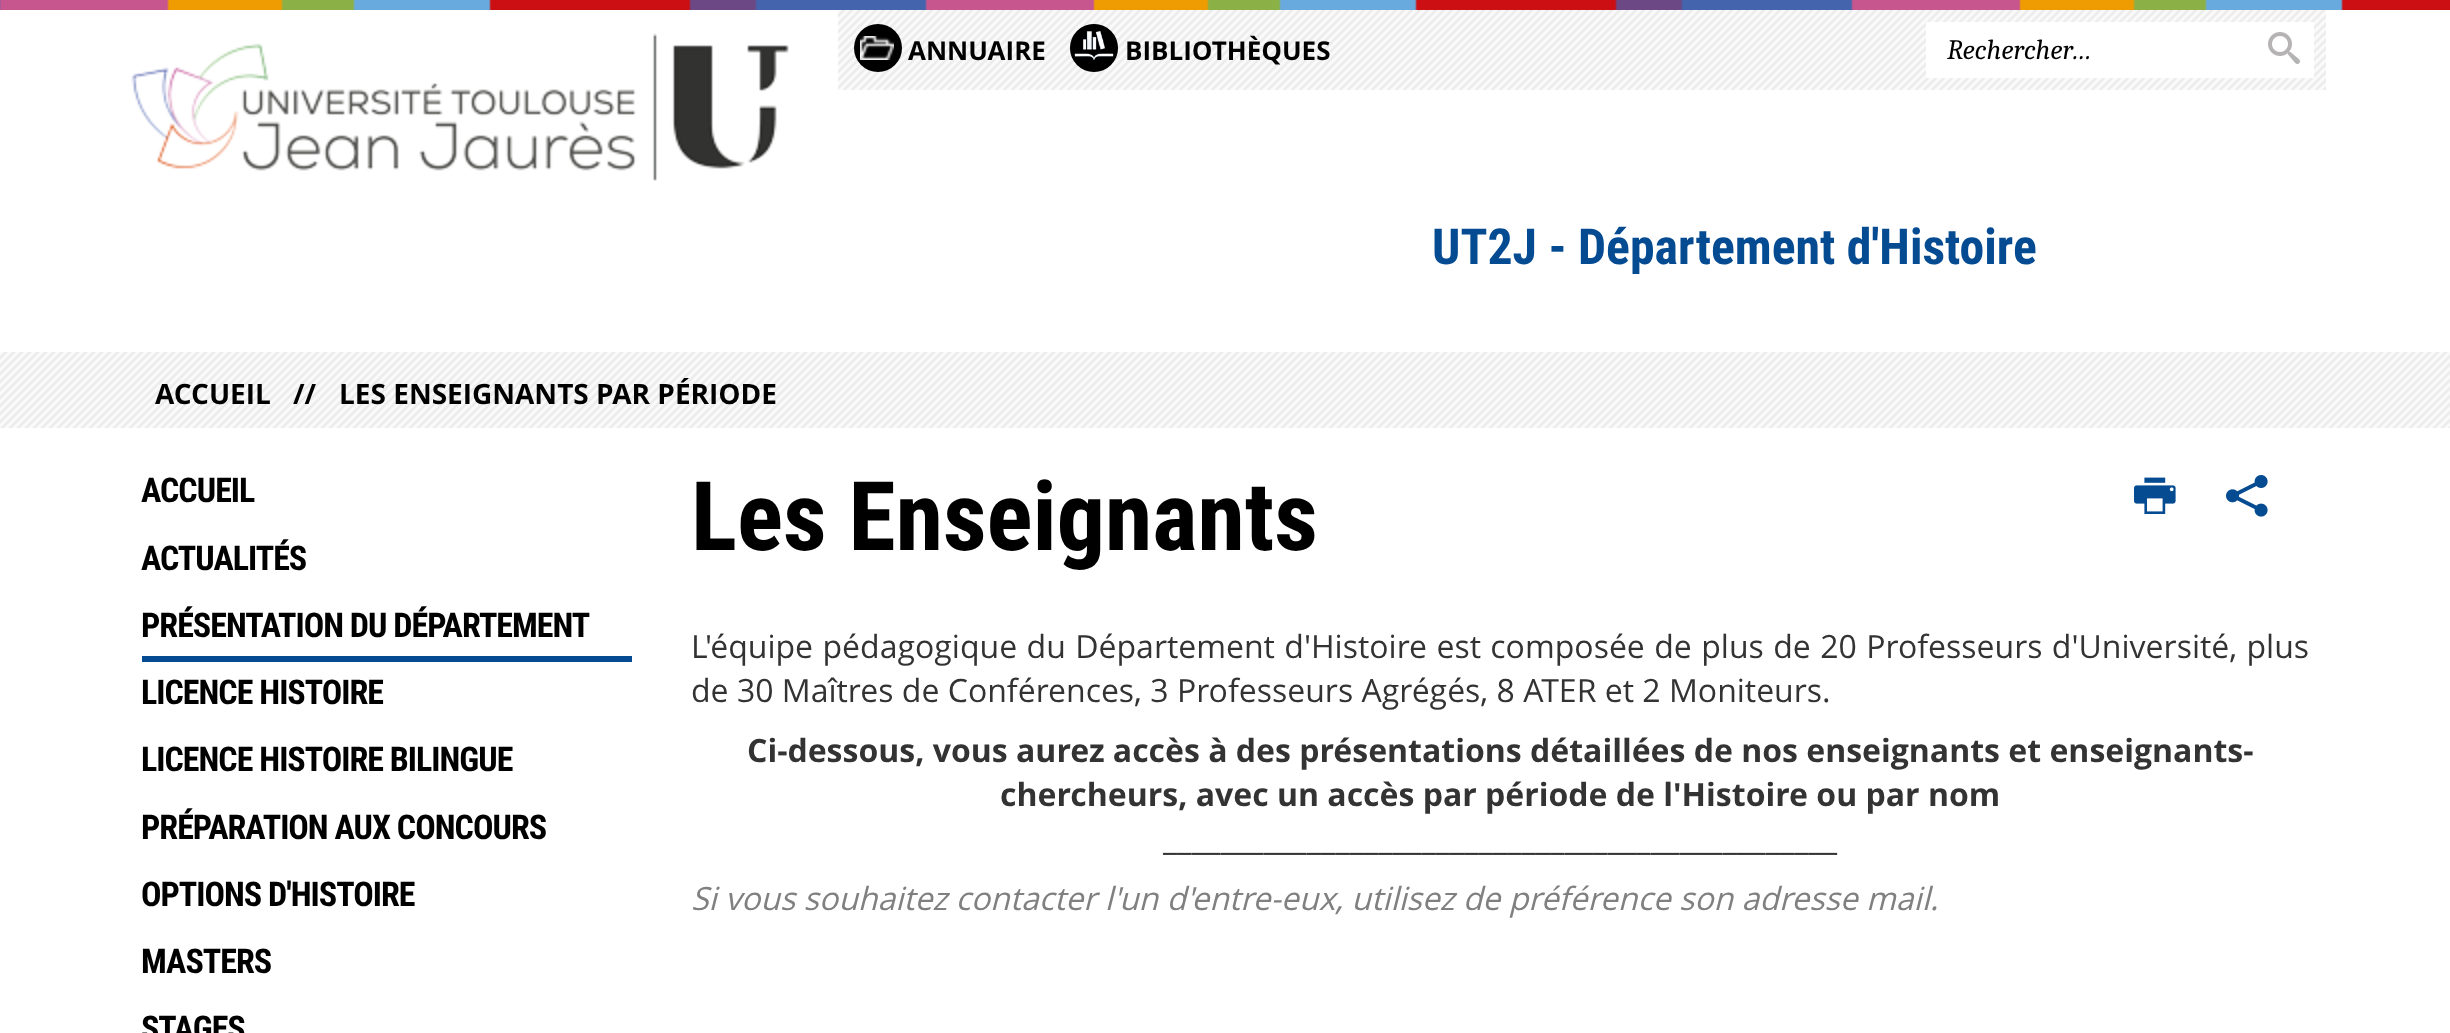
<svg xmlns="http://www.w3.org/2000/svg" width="2450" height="1033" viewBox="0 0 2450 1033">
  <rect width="100%" height="100%" fill="rgb(255,255,255)"/>
  <image x="0" y="0" width="2450" height="10" href="pic1.png"/>
  <image x="131" y="33" width="658" height="148" href="pic2.png"/>
  <rect x="838" y="10" width="1488" height="80" fill="rgb(229,229,229)"/>
  <image x="838" y="10" width="1488" height="80" href="pic3.png"/>
  <circle cx="878" cy="48" r="24" fill="rgb(0,0,0)"/>
  <image x="860" y="36" width="34" height="24" href="pic4.png"/>
  <text x="908" y="60" font-family="Open Sans" font-size="26" font-weight="bold" fill="rgb(0,0,0)">ANNUAIRE</text>
  <circle cx="1094" cy="48" r="24" fill="rgb(0,0,0)"/>
  <image x="1070" y="24" width="48" height="48" href="pic5.png"/>
  <text x="1125" y="60" font-family="Open Sans" font-size="26" font-weight="bold" fill="rgb(0,0,0)">BIBLIOTHÈQUES</text>
  <rect x="1926" y="22" width="388" height="56" fill="rgb(255,255,255)"/>
  <text x="1947" y="59" font-family="Caladea" font-size="28" font-style="italic" fill="rgb(0,0,0)">Rechercher…</text>
  <image x="2268" y="32" width="32" height="32" href="pic6.png"/>
  <text x="1432" y="264" font-family="Roboto Condensed" font-size="49.75" font-weight="bold" fill="rgb(4,75,146)">UT2J - Département d'Histoire</text>
  <rect x="0" y="352" width="2450" height="76" fill="rgb(229,229,229)"/>
  <image x="0" y="352" width="2450" height="76" href="pic7.png"/>
  <g font-family="Open Sans" font-size="28" font-weight="bold" fill="rgb(0,0,0)">
    <text x="155" y="404">ACCUEIL</text>
    <text x="293" y="404">//</text>
    <text x="339" y="404">LES ENSEIGNANTS PAR PÉRIODE</text>
  </g>
  <g font-family="Roboto Condensed" font-size="34" font-weight="bold" letter-spacing="-1" fill="rgb(0,0,0)">
    <text x="141" y="502">ACCUEIL</text>
    <text x="141" y="570">ACTUALITÉS</text>
  </g>
  <rect x="142" y="656" width="490" height="6" fill="rgb(4,75,146)"/>
  <g font-family="Roboto Condensed" font-size="34" font-weight="bold" letter-spacing="-1" fill="rgb(0,0,0)">
    <text>
      <tspan x="141" y="637">PRÉSENTATION DU DÉPARTEMENT</tspan>
      <tspan x="141" y="704">LICENCE HISTOIRE</tspan>
      <tspan x="141" y="771">LICENCE HISTOIRE BILINGUE</tspan>
    </text>
    <text>
      <tspan x="141" y="839">PRÉPARATION AUX CONCOURS</tspan>
      <tspan x="141" y="906">OPTIONS D'HISTOIRE</tspan>
      <tspan x="141" y="973">MASTERS</tspan>
      <tspan x="141" y="1040">STAGES</tspan>
    </text>
  </g>
  <text x="691" y="550" font-family="Roboto Condensed" font-size="96" font-weight="bold" fill="rgb(0,0,0)">Les Enseignants</text>
  <image x="2134" y="477" width="42" height="37" href="pic8.png"/>
  <image x="2226" y="475" width="42" height="42" href="pic9.png"/>
  <g font-family="Open Sans" font-size="32" fill="rgb(51,51,51)">
    <text>
      <tspan x="691" y="658" word-spacing="1.1">L'équipe pédagogique du Département d'Histoire est composée de plus de 20 Professeurs d'Université, plus</tspan>
      <tspan x="691" y="702">de 30 Maîtres de Conférences, 3 Professeurs Agrégés, 8 ATER et 2 Moniteurs.</tspan>
    </text>
  </g>
  <g font-family="Open Sans" font-size="32" font-weight="bold" fill="rgb(51,51,51)">
    <text x="747" y="762">Ci-dessous, vous aurez accès à des présentations détaillées de nos enseignants et enseignants-</text>
    <text x="1000" y="806">chercheurs, avec un accès par période de l'Histoire ou par nom</text>
  </g>
  <text x="1163" y="850" font-family="Open Sans" font-size="32" fill="rgb(51,51,51)">_______________________________________________</text>
  <text x="691" y="910" font-family="Open Sans" font-size="32" font-style="italic" fill="rgb(128,128,128)">Si vous souhaitez contacter l'un d'entre-eux, utilisez de préférence son adresse mail.</text>
</svg>
